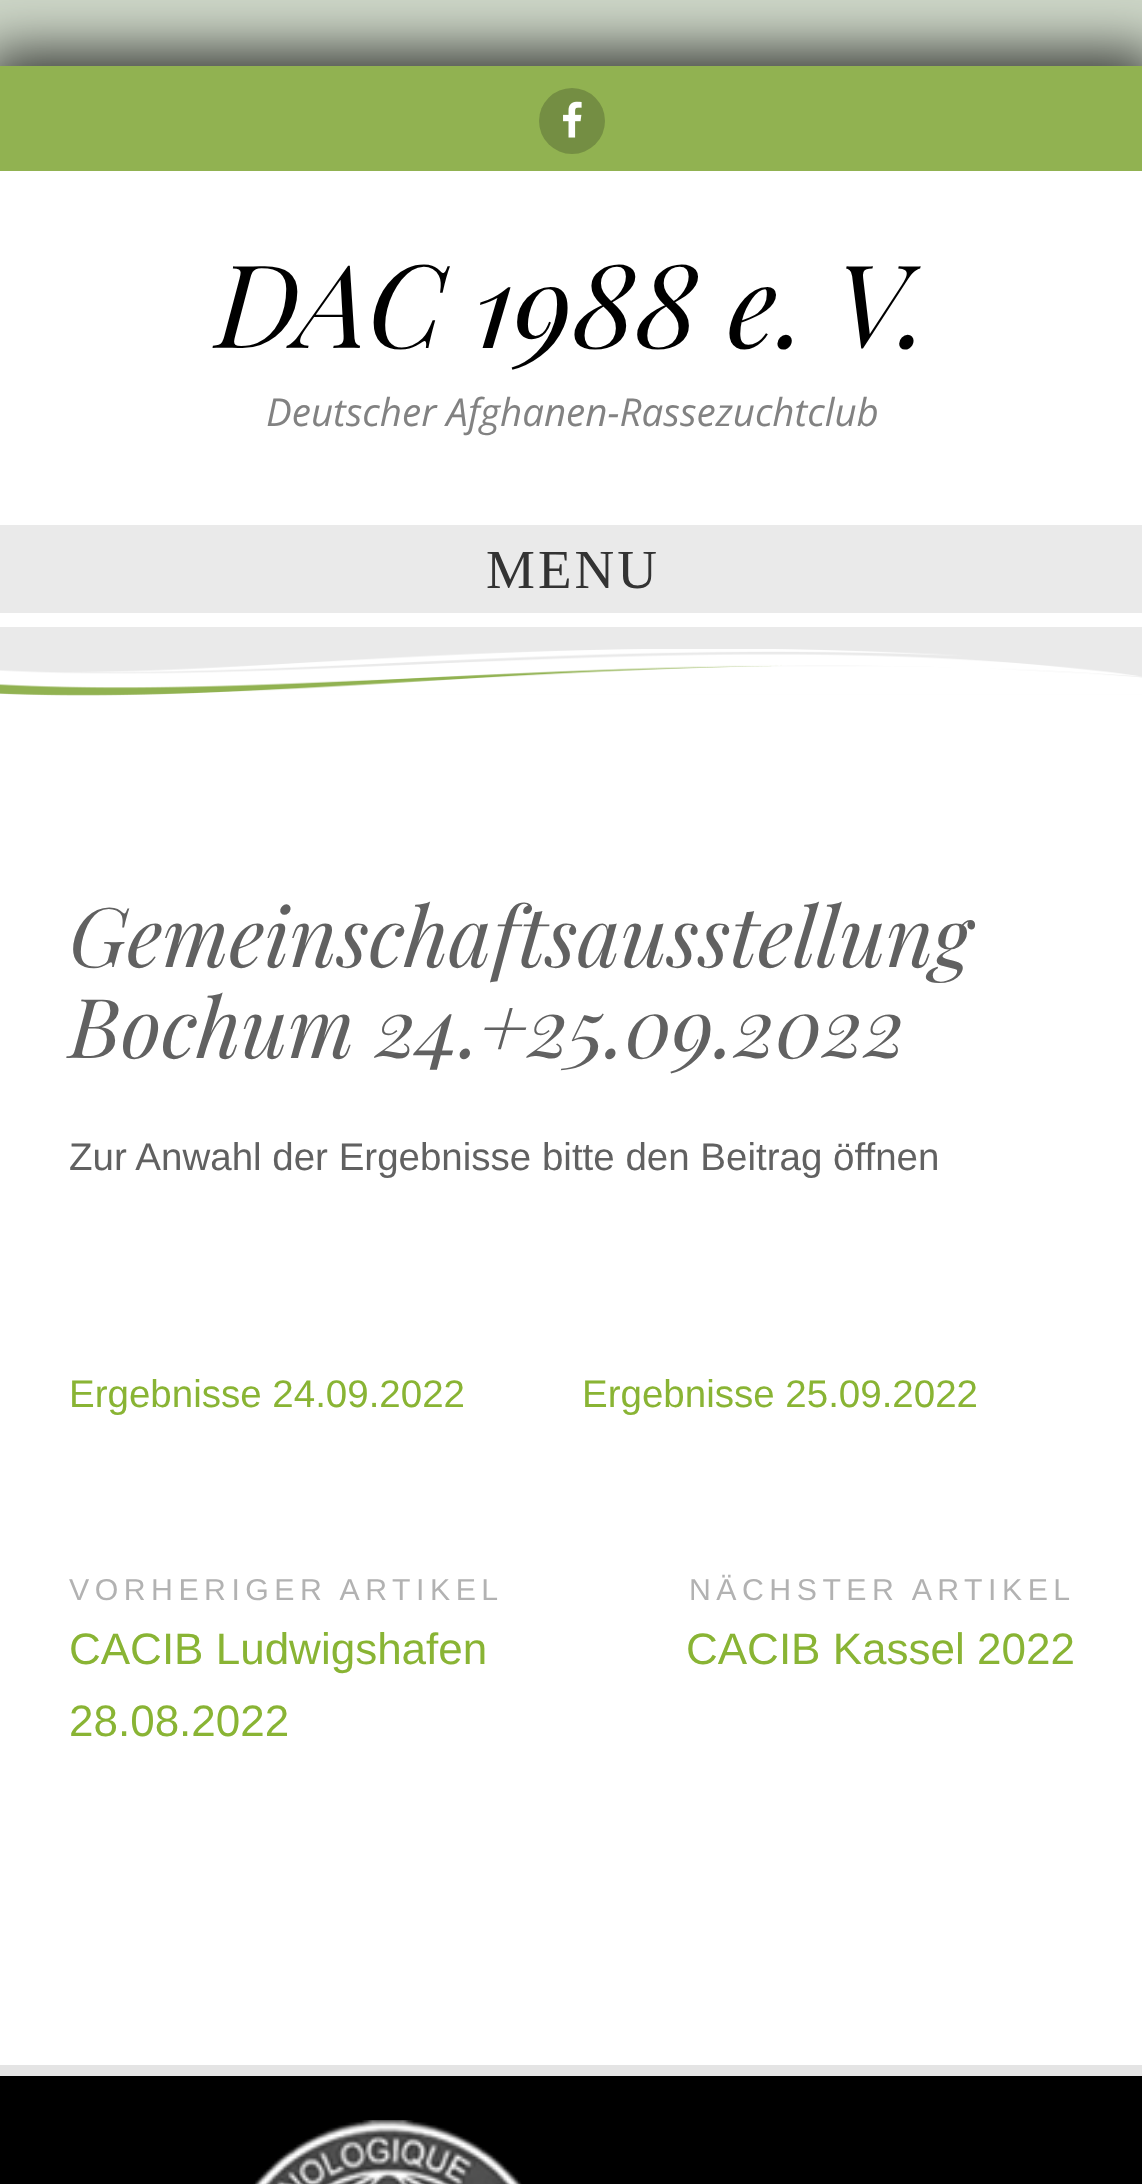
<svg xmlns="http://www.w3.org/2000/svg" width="1142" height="2184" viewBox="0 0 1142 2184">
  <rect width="100%" height="100%" fill="rgb(205,214,199)"/>
  <rect x="-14" y="52" width="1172" height="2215" fill="rgba(0,0,0,0.75)" filter="blur(27.5px)"/>
  <rect x="0" y="66" width="1142" height="105" fill="rgb(145,178,81)"/>
  <circle cx="572" cy="121" r="33" fill="rgb(116,142,67)"/>
  <image x="563" y="101" width="19" height="37" href="pic1.png"/>
  <rect x="0" y="171" width="1142" height="456" fill="rgb(255,255,255)"/>
  <text x="216" y="348" font-family="Playfair Display" font-size="115.5" font-style="italic" fill="rgb(0,0,0)">DAC 1988 e. V.</text>
  <text x="266" y="426" font-family="Open Sans" font-size="38.5" font-style="italic" fill="rgb(130,130,130)">Deutscher Afghanen-Rassezuchtclub</text>
  <rect x="0" y="525" width="1142" height="88" fill="rgb(234,234,234)"/>
  <text x="486" y="588" font-family="Liberation Serif" font-size="55" letter-spacing="3" fill="rgb(51,51,51)">MENU</text>
  <rect x="0" y="627" width="1142" height="51" fill="rgb(234,234,234)"/>
  <rect x="0" y="695" width="1142" height="1370" fill="rgb(255,255,255)"/>
  <image x="0" y="649" width="1142" height="47" href="pic2.png"/>
  <g font-family="Playfair Display" font-size="82.5" font-style="italic" fill="rgb(97,97,97)">
    <text>
      <tspan x="69" y="967">Gemeinschaftsausstellung</tspan>
      <tspan x="69" y="1058">Bochum 24.+25.09.2022</tspan>
    </text>
  </g>
  <text x="69" y="1170" font-family="Liberation Sans" font-size="38.5" fill="rgb(97,97,97)">Zur Anwahl der Ergebnisse bitte den Beitrag öffnen</text>
  <g font-family="Liberation Sans" font-size="38.5" fill="rgb(137,180,52)">
    <text x="69" y="1407">Ergebnisse 24.09.2022</text>
    <text x="582" y="1407">Ergebnisse 25.09.2022</text>
  </g>
  <text x="69" y="1600" font-family="Liberation Sans" font-size="30.25" letter-spacing="5.5" fill="rgb(178,178,178)">VORHERIGER ARTIKEL</text>
  <g font-family="Liberation Sans" font-size="44" fill="rgb(137,180,52)">
    <text>
      <tspan x="69" y="1664">CACIB Ludwigshafen</tspan>
      <tspan x="69" y="1736">28.08.2022</tspan>
    </text>
  </g>
  <text x="689" y="1600" font-family="Liberation Sans" font-size="30.25" letter-spacing="5.5" fill="rgb(178,178,178)">NÄCHSTER ARTIKEL</text>
  <text x="686" y="1664" font-family="Liberation Sans" font-size="44" fill="rgb(137,180,52)">CACIB Kassel 2022</text>
  <rect x="0" y="2065" width="1142" height="11" fill="rgb(228,228,228)"/>
  <rect x="0" y="2076" width="1142" height="108" fill="rgb(0,0,0)"/>
  <image x="253" y="2120" width="269" height="64" href="pic3.png"/>
</svg>
